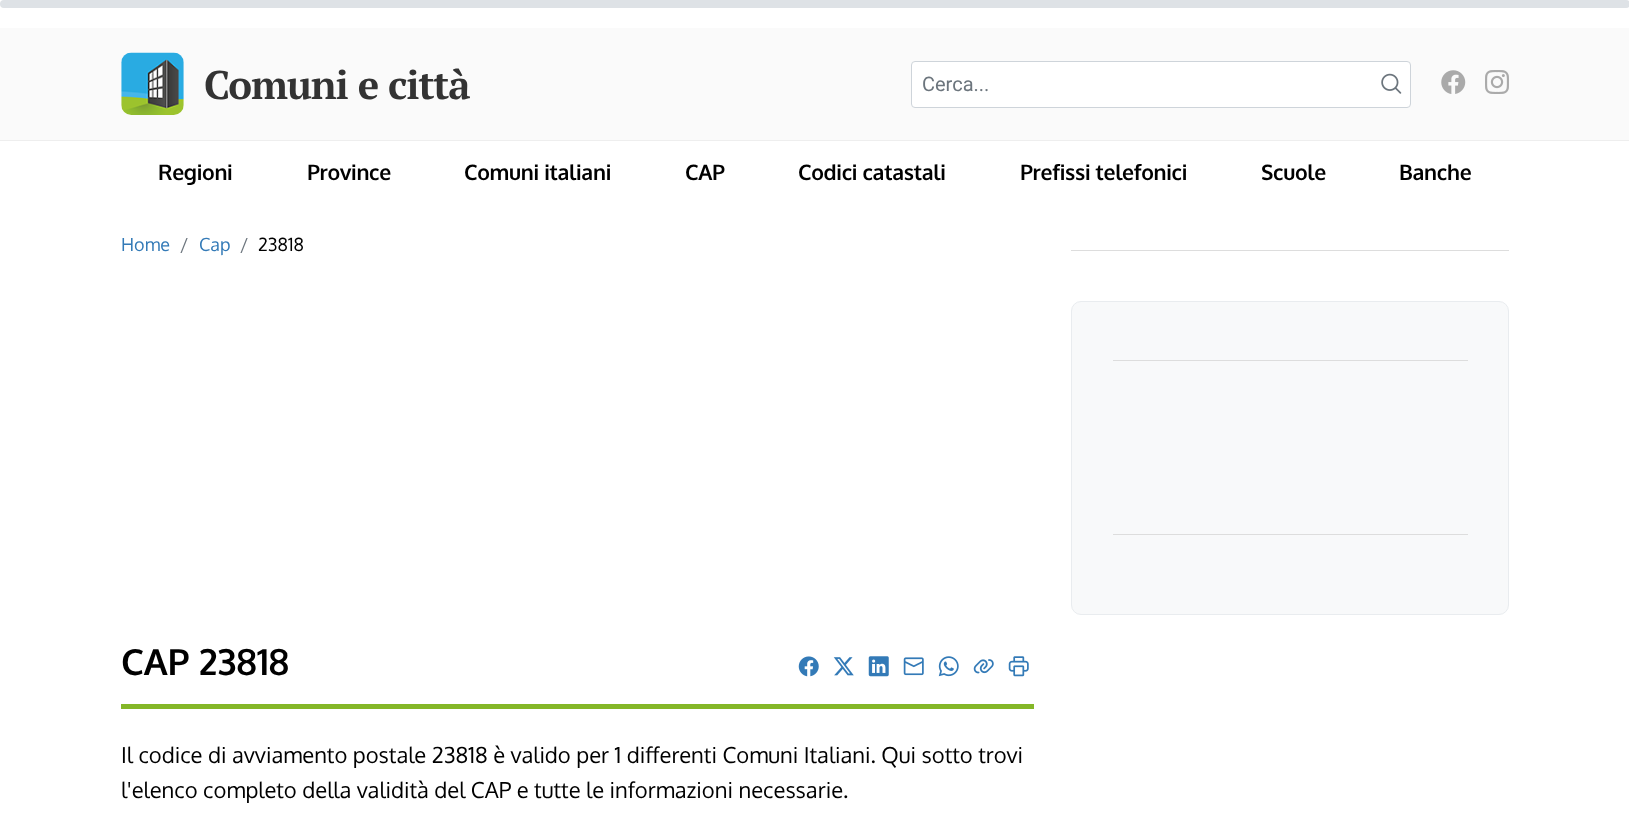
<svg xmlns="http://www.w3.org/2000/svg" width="1629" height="824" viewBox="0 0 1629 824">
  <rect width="100%" height="100%" fill="rgb(255,255,255)"/>
  <rect x="0" y="0" width="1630" height="8" rx="4" fill="rgb(222,226,230)"/>
  <rect x="0" y="28" width="1629" height="112" fill="rgb(250,250,250)"/>
  <image x="121" y="52" width="63" height="63" href="pic1.png"/>
  <text x="204" y="99" font-family="PT Serif" font-size="40" font-weight="bold" letter-spacing="-1" fill="rgb(51,51,51)">Comuni e città</text>
  <rect x="911.5" y="61.5" width="499" height="46" rx="3.5" fill="rgb(255,255,255)" stroke="rgb(206,212,218)"/>
  <text x="922" y="91" font-family="Roboto" font-size="20" fill="rgb(108,117,125)">Cerca...</text>
  <image x="1381" y="73" width="21" height="21" href="pic2.png"/>
  <image x="1441" y="70" width="25" height="24" href="pic3.png"/>
  <image x="1485" y="70" width="24" height="24" href="pic4.png"/>
  <rect x="0" y="140" width="1629" height="1" fill="rgb(238,238,238)"/>
  <g font-family="Oxygen" font-size="21.25" font-weight="bold" letter-spacing="-0.3" fill="rgb(0,0,0)">
    <text x="158" y="180">Regioni</text>
    <text x="307" y="180">Province</text>
    <text x="464" y="180">Comuni italiani</text>
    <text x="685" y="180">CAP</text>
    <text x="798" y="180">Codici catastali</text>
    <text x="1020" y="180">Prefissi telefonici</text>
    <text x="1261" y="180">Scuole</text>
    <text x="1399" y="180">Banche</text>
  </g>
  <text x="121" y="251" font-family="Oxygen" font-size="18" fill="rgb(51,122,183)">Home</text>
  <text x="180" y="251" font-family="Oxygen" font-size="18" fill="rgb(108,117,125)">/</text>
  <text x="199" y="251" font-family="Oxygen" font-size="18" fill="rgb(51,122,183)">Cap</text>
  <text x="240" y="251" font-family="Oxygen" font-size="18" fill="rgb(108,117,125)">/</text>
  <text x="258" y="251" font-family="Oxygen" font-size="18" fill="rgb(0,0,0)">23818</text>
  <rect x="121" y="704" width="913" height="5" fill="rgb(132,183,40)"/>
  <text x="121" y="675" font-family="Oxygen" font-size="36" font-weight="bold" fill="rgb(0,0,0)">CAP 23818</text>
  <image x="798" y="656" width="21" height="21" href="pic5.png"/>
  <image x="833" y="657" width="21" height="19" href="pic6.png"/>
  <image x="868" y="656" width="21" height="21" href="pic7.png"/>
  <image x="903" y="657" width="21" height="19" href="pic8.png"/>
  <image x="938" y="656" width="21" height="21" href="pic9.png"/>
  <image x="973" y="659" width="21" height="15" href="pic10.png"/>
  <image x="1008" y="656" width="21" height="21" href="pic11.png"/>
  <g font-family="Oxygen" font-size="22" fill="rgb(0,0,0)">
    <text>
      <tspan x="121" y="763">Il codice di avviamento postale 23818 è valido per 1 differenti Comuni Italiani. Qui sotto trovi</tspan>
      <tspan x="121" y="798">l'elenco completo della validità del CAP e tutte le informazioni necessarie.</tspan>
    </text>
  </g>
  <rect x="1071" y="250" width="438" height="1" fill="rgb(221,221,221)"/>
  <rect x="1071.5" y="301.5" width="437" height="313" rx="9.5" fill="rgb(248,249,250)" stroke="rgb(233,236,239)"/>
  <rect x="1113" y="360" width="355" height="1" fill="rgb(221,221,221)"/>
  <rect x="1113" y="534" width="355" height="1" fill="rgb(221,221,221)"/>
</svg>
